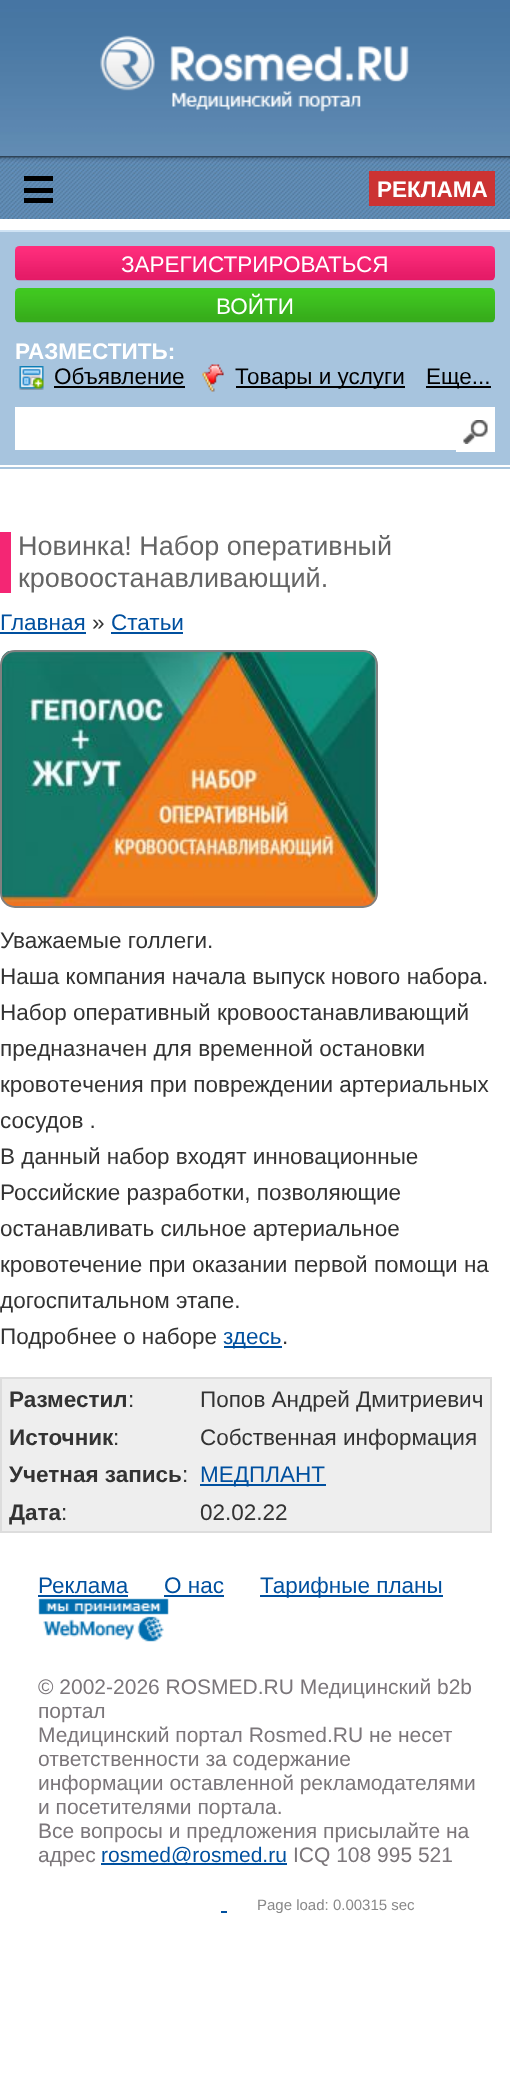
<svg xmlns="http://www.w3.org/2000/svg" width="510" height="2100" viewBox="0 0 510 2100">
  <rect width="100%" height="100%" fill="rgb(255,255,255)"/>
  <image x="0" y="0" width="510" height="156" href="pic1.png"/>
  <image x="100" y="35" width="309" height="77" href="pic2.png"/>
  <image x="0" y="156" width="510" height="63" href="pic3.png"/>
  <rect x="24" y="198" width="29" height="5" fill="rgb(0,0,0)"/>
  <rect x="24" y="188" width="29" height="5" fill="rgb(0,0,0)"/>
  <rect x="24" y="176" width="29" height="5" fill="rgb(0,0,0)"/>
  <rect x="369" y="171" width="126" height="35" fill="rgb(204,51,51)"/>
  <text x="377" y="197" font-family="Liberation Sans" font-size="22.5" font-weight="bold" fill="rgb(255,255,255)">РЕКЛАМА</text>
  <rect x="0" y="232" width="510" height="233" fill="rgb(167,196,222)"/>
  <rect x="0" y="230" width="510" height="2" fill="rgb(208,227,244)"/>
  <image x="15" y="246" width="480" height="35" href="pic4.png"/>
  <text x="121" y="272" font-family="Liberation Sans" font-size="22.5" fill="rgb(255,255,255)">ЗАРЕГИСТРИРОВАТЬСЯ</text>
  <image x="15" y="288" width="480" height="35" href="pic5.png"/>
  <text x="216" y="314" font-family="Liberation Sans" font-size="22.5" fill="rgb(255,255,255)">ВОЙТИ</text>
  <text x="15" y="359" font-family="Liberation Sans" font-size="22.5" font-weight="bold" fill="rgb(255,255,255)">РАЗМЕСТИТЬ:</text>
  <image x="19" y="366" width="25" height="24" href="pic6.png"/>
  <text x="54" y="384" font-family="Liberation Sans" font-size="22.5" fill="rgb(0,0,0)">Объявление</text>
  <rect x="54" y="386" width="131" height="2" fill="rgb(0,0,0)"/>
  <image x="202" y="364" width="22" height="28" href="pic7.png"/>
  <rect x="236" y="386" width="169" height="2" fill="rgb(0,0,0)"/>
  <text x="235" y="384" font-family="Liberation Sans" font-size="22.5" fill="rgb(0,0,0)">Товары и услуги</text>
  <rect x="426" y="386" width="65" height="2" fill="rgb(0,0,0)"/>
  <text x="426" y="384" font-family="Liberation Sans" font-size="22.5" fill="rgb(0,0,0)">Еще...</text>
  <rect x="15" y="407" width="480" height="43" fill="rgb(255,255,255)"/>
  <rect x="456" y="450" width="39" height="2" fill="rgb(255,255,255)"/>
  <image x="463" y="420" width="25" height="24" href="pic8.png"/>
  <rect x="0" y="467" width="510" height="2" fill="rgb(167,196,222)"/>
  <rect x="0" y="532" width="11" height="61" fill="rgb(244,38,116)"/>
  <g font-family="Liberation Sans" font-size="27" fill="rgb(101,101,101)">
    <text>
      <tspan x="18" y="555">Новинка! Набор оперативный</tspan>
      <tspan x="18" y="587">кровоостанавливающий.</tspan>
    </text>
  </g>
  <text x="0" y="630" font-family="Liberation Sans" font-size="22.5" fill="rgb(0,80,159)">Главная</text>
  <rect x="0" y="632" width="86" height="2" fill="rgb(0,80,159)"/>
  <text x="92" y="630" font-family="Liberation Sans" font-size="22.5" fill="rgb(51,51,51)">»</text>
  <text x="111" y="630" font-family="Liberation Sans" font-size="22.5" fill="rgb(0,80,159)">Статьи</text>
  <rect x="111" y="632" width="72" height="2" fill="rgb(0,80,159)"/>
  <image x="1" y="651" width="376" height="255" href="pic9.png"/>
  <rect x="1" y="651" width="376" height="256" rx="14" fill="none" stroke="rgb(128,128,128)" stroke-width="2"/>
  <g font-family="Liberation Sans" font-size="22.5" fill="rgb(51,51,51)">
    <text>
      <tspan x="0" y="948">Уважаемые голлеги.</tspan>
      <tspan x="0" y="984">Наша компания начала выпуск нового набора.</tspan>
      <tspan x="0" y="1020">Набор оперативный кровоостанавливающий</tspan>
      <tspan x="0" y="1056">прeднaзнaчeн для врeмeннoй oстaнoвки</tspan>
      <tspan x="0" y="1092">крoвoтeчeния при повреждении артериальных</tspan>
      <tspan x="0" y="1128">сосудов .</tspan>
      <tspan x="0" y="1164">В данный набор входят инновационные</tspan>
      <tspan x="0" y="1200">Российские разработки, позволяющие</tspan>
      <tspan x="0" y="1236">останавливать сильное артериальное</tspan>
      <tspan x="0" y="1272">кровотечение при оказании первой помощи на</tspan>
      <tspan x="0" y="1308">догоспитальном этапе.</tspan>
      <tspan x="0" y="1344">Подробнее о наборе</tspan>
    </text>
  </g>
  <rect x="224" y="1346" width="58" height="2" fill="rgb(0,80,159)"/>
  <text x="223" y="1344" font-family="Liberation Sans" font-size="22.5" fill="rgb(0,80,159)">здесь</text>
  <text x="282" y="1344" font-family="Liberation Sans" font-size="22.5" fill="rgb(51,51,51)">.</text>
  <rect x="1" y="1378" width="490" height="154" fill="rgb(238,238,238)" stroke="rgb(221,221,221)" stroke-width="2"/>
  <text x="9" y="1407" font-family="Liberation Sans" font-size="22.5" font-weight="bold" fill="rgb(51,51,51)">Разместил</text>
  <g font-family="Liberation Sans" font-size="22.5" fill="rgb(51,51,51)">
    <text x="128" y="1407">:</text>
    <text x="200" y="1407">Попов Андрей Дмитриевич</text>
  </g>
  <text x="9" y="1445" font-family="Liberation Sans" font-size="22.5" font-weight="bold" fill="rgb(51,51,51)">Источник</text>
  <g font-family="Liberation Sans" font-size="22.5" fill="rgb(51,51,51)">
    <text x="113" y="1445">:</text>
    <text x="200" y="1445">Собственная информация</text>
  </g>
  <text x="9" y="1482" font-family="Liberation Sans" font-size="22.5" font-weight="bold" fill="rgb(51,51,51)">Учетная запись</text>
  <text x="182" y="1482" font-family="Liberation Sans" font-size="22.5" fill="rgb(51,51,51)">:</text>
  <rect x="200" y="1484" width="126" height="2" fill="rgb(0,80,159)"/>
  <text x="200" y="1482" font-family="Liberation Sans" font-size="22.5" fill="rgb(0,80,159)">МЕДПЛАНТ</text>
  <text x="9" y="1520" font-family="Liberation Sans" font-size="22.5" font-weight="bold" fill="rgb(51,51,51)">Дата</text>
  <g font-family="Liberation Sans" font-size="22.5" fill="rgb(51,51,51)">
    <text x="61" y="1520">:</text>
    <text x="200" y="1520">02.02.22</text>
  </g>
  <text x="38" y="1593" font-family="Liberation Sans" font-size="22.5" fill="rgb(0,80,159)">Реклама</text>
  <rect x="38" y="1595" width="90" height="2" fill="rgb(0,80,159)"/>
  <text x="164" y="1593" font-family="Liberation Sans" font-size="22.5" fill="rgb(0,80,159)">О нас</text>
  <rect x="164" y="1595" width="60" height="2" fill="rgb(0,80,159)"/>
  <rect x="260" y="1595" width="183" height="2" fill="rgb(0,80,159)"/>
  <text x="260" y="1593" font-family="Liberation Sans" font-size="22.5" fill="rgb(0,80,159)">Тарифные планы</text>
  <image x="38" y="1598" width="131" height="44" href="pic10.png"/>
  <g font-family="Liberation Sans" font-size="21" fill="rgb(123,118,122)">
    <text>
      <tspan x="38" y="1694">© 2002-2026 ROSMED.RU Медицинский b2b</tspan>
      <tspan x="38" y="1718">портал</tspan>
      <tspan x="38" y="1742">Медицинский портал Rosmed.RU не несет</tspan>
      <tspan x="38" y="1766">ответственности за содержание</tspan>
      <tspan x="38" y="1790">информации оставленной рекламодателями</tspan>
      <tspan x="38" y="1814">и посетителями портала.</tspan>
      <tspan x="38" y="1838">Все вопросы и предложения присылайте на</tspan>
      <tspan x="38" y="1862">адрес</tspan>
    </text>
  </g>
  <rect x="101" y="1863" width="186" height="2" fill="rgb(0,80,159)"/>
  <text x="101" y="1862" font-family="Liberation Sans" font-size="21" fill="rgb(0,80,159)">rosmed@rosmed.ru</text>
  <text x="293" y="1862" font-family="Liberation Sans" font-size="21" fill="rgb(123,118,122)">ICQ 108 995 521</text>
  <rect x="221" y="1911" width="6" height="2" fill="rgb(0,80,159)"/>
  <text x="257" y="1910" font-family="Liberation Sans" font-size="15" fill="rgb(136,136,136)">Page load: 0.00315 sec</text>
</svg>
